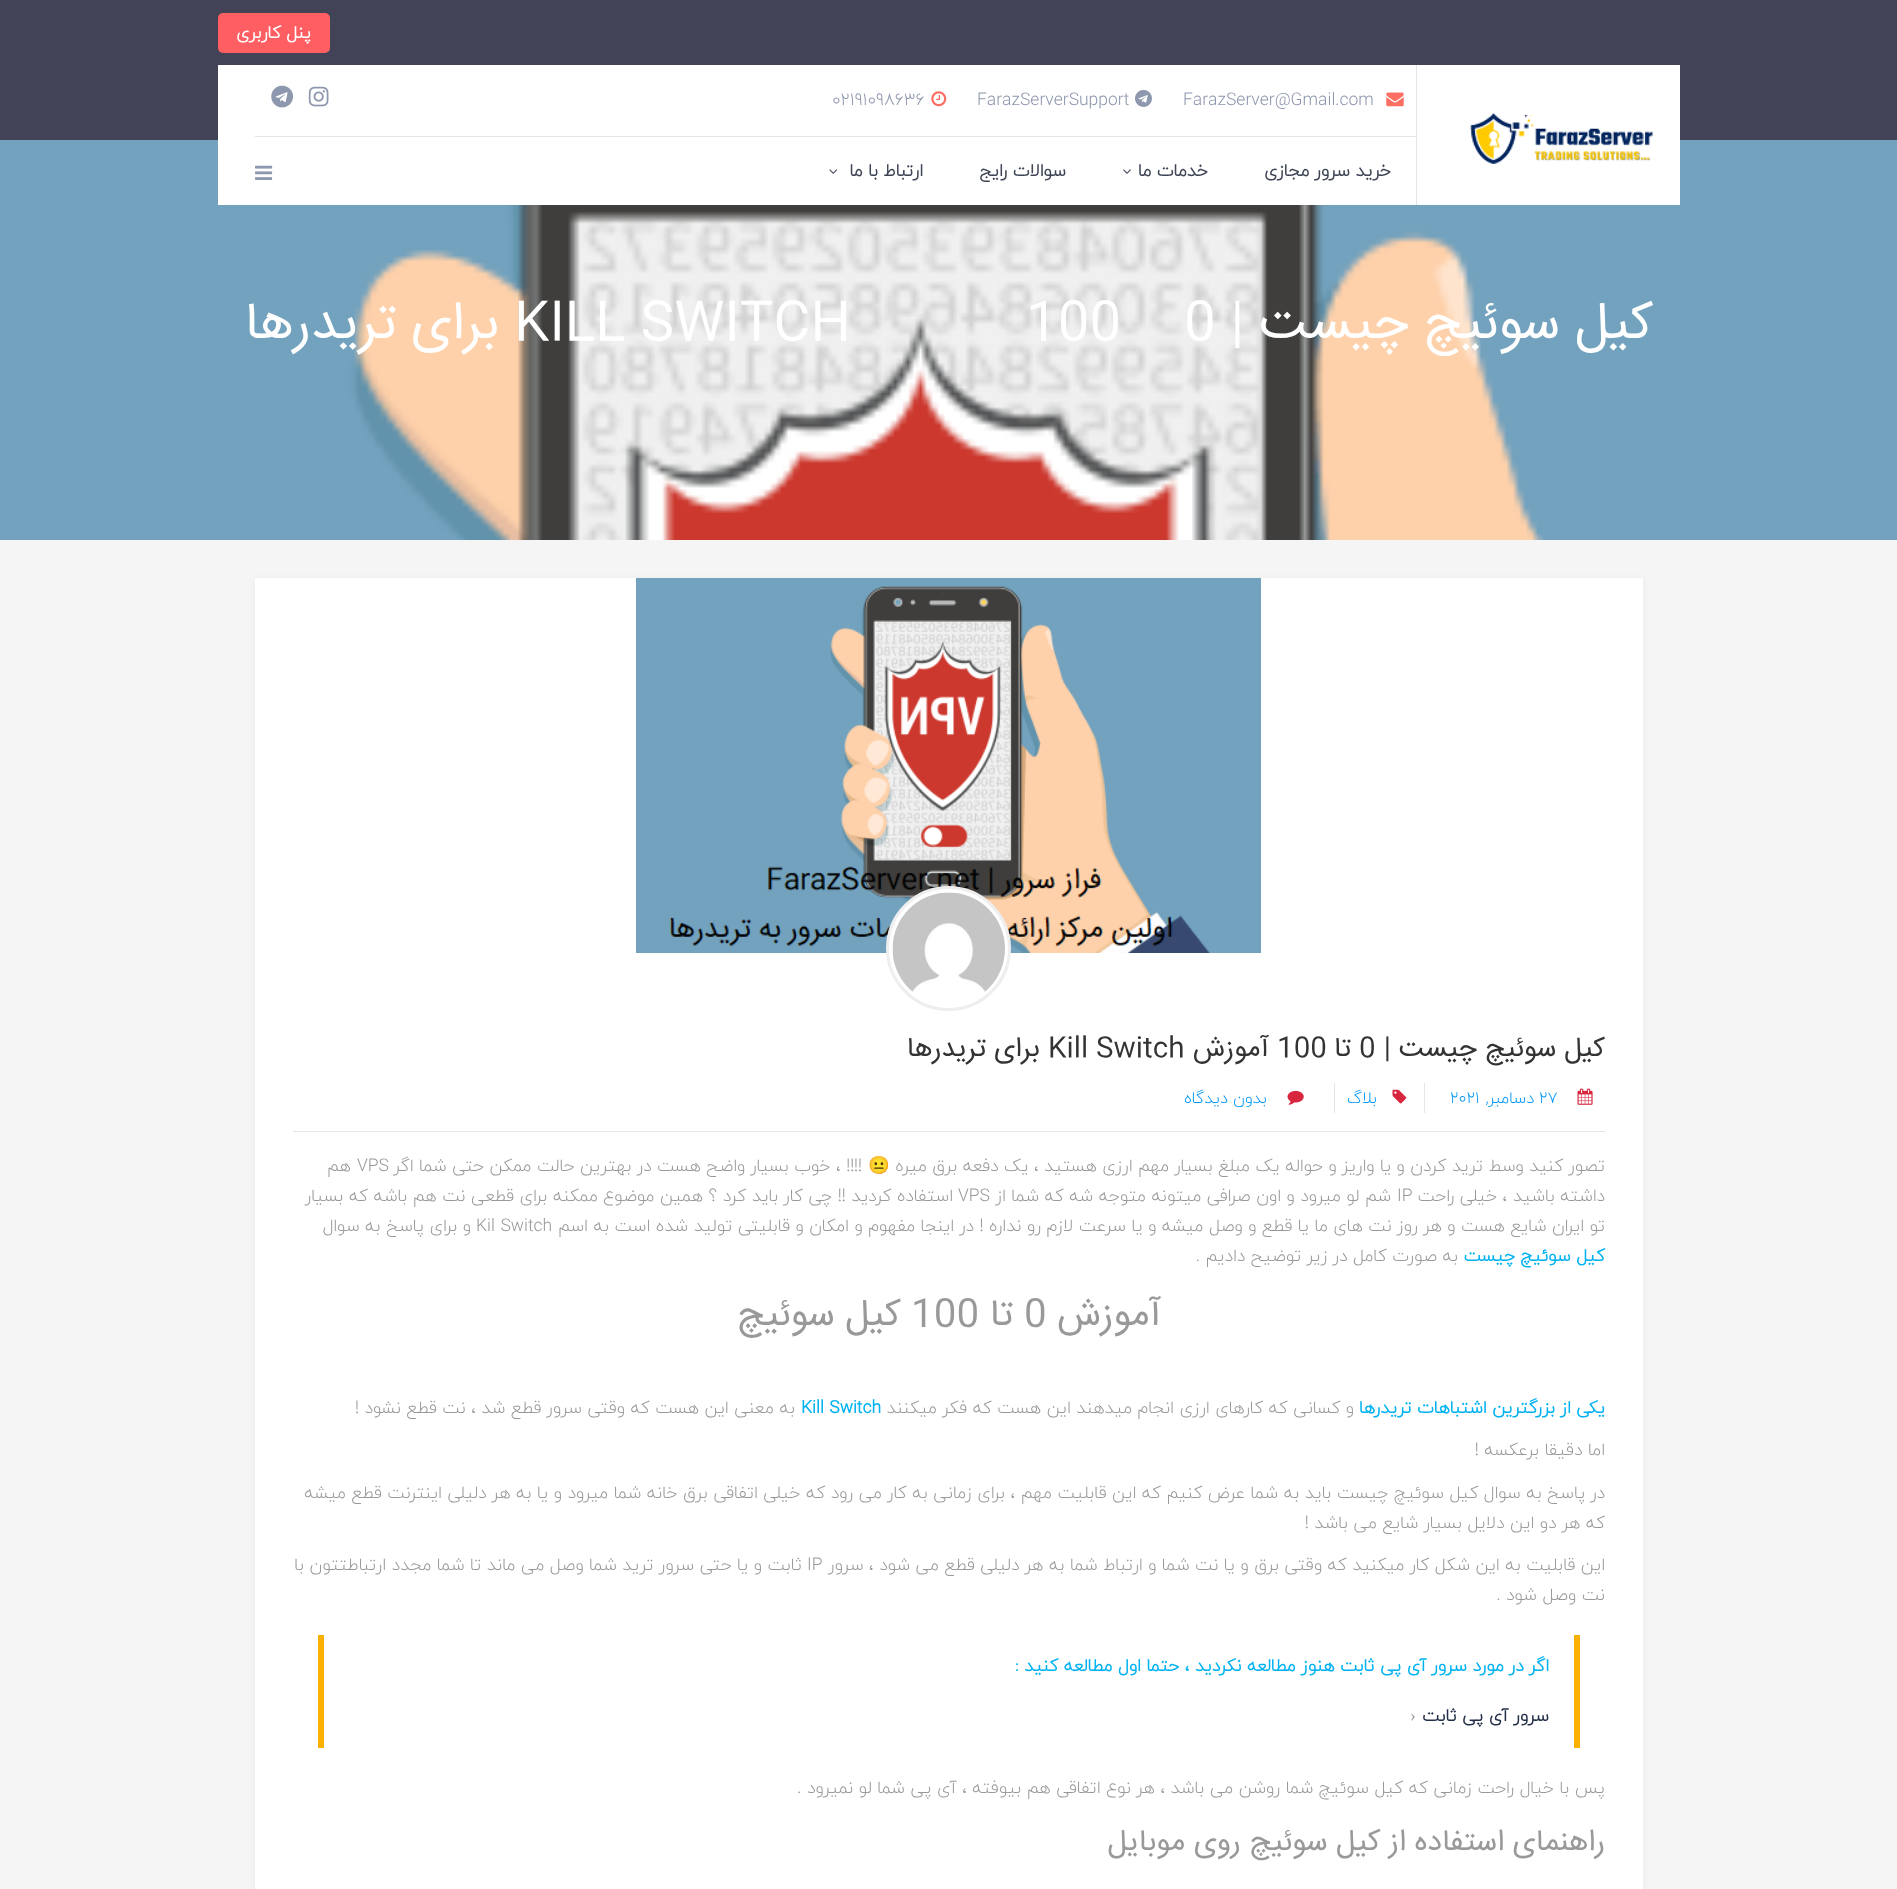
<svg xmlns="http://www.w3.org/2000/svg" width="1897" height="1889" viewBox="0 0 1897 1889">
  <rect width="100%" height="100%" fill="rgb(245,245,245)"/>
  <rect x="0" y="0" width="1897" height="140" fill="rgb(66,67,87)"/>
  <rect x="218" y="13" width="112" height="40" rx="5" fill="rgb(255,95,98)"/>
  <text x="311" y="38" font-family="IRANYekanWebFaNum" font-size="17.5" font-weight="bold" direction="rtl" fill="rgb(255,255,255)">پنل کاربری</text>
  <image x="0" y="140" width="1897" height="400" href="pic10.png"/>
  <rect x="218" y="65" width="1462" height="140" fill="rgb(255,255,255)"/>
  <image x="1470" y="113" width="183" height="51" href="pic1.png"/>
  <rect x="1416" y="65" width="1" height="140" fill="rgb(229,229,229)"/>
  <rect x="255" y="136" width="1161" height="1" fill="rgb(229,229,229)"/>
  <image x="1386" y="92" width="18" height="15" href="pic2.png"/>
  <text x="1183" y="105" font-family="IRANYekanWebFaNum" font-size="17.5" font-weight="300" fill="rgb(141,151,173)">FarazServer@Gmail.com</text>
  <image x="1135" y="90" width="17" height="17" href="pic3.png"/>
  <text x="977" y="105" font-family="IRANYekanWebFaNum" font-size="17.5" font-weight="300" fill="rgb(141,151,173)">FarazServerSupport</text>
  <image x="931" y="91" width="16" height="16" href="pic4.png"/>
  <text x="832" y="105" font-family="IRANYekanWebFaNum" font-size="17.5" font-weight="300" fill="rgb(141,151,173)">02191098636</text>
  <g font-family="IRANYekanWebFaNum" font-size="17.5" font-weight="bold" direction="rtl" fill="rgb(62,69,85)">
    <text x="1391" y="176">خرید سرور مجازی</text>
    <text x="1208" y="176">خدمات ما</text>
  </g>
  <image x="1123" y="169" width="8" height="5" href="pic5.png"/>
  <g font-family="IRANYekanWebFaNum" font-size="17.5" font-weight="bold" direction="rtl" fill="rgb(62,69,85)">
    <text x="1066" y="176">سوالات رایج</text>
    <text x="923" y="176">ارتباط با ما</text>
  </g>
  <image x="829" y="169" width="9" height="5" href="pic6.png"/>
  <image x="308" y="86" width="21" height="21" href="pic7.png"/>
  <image x="271" y="85" width="22" height="23" href="pic8.png"/>
  <image x="255" y="165" width="18" height="15" href="pic9.png"/>
  <text x="1653" y="338" font-family="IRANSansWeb" font-size="52.5" direction="rtl" fill="rgb(255,255,255)">کیل سوئیچ چیست |</text>
  <g font-family="IRANSansWeb" font-size="52.5" fill="rgb(255,255,255)">
    <text x="1184" y="338">0</text>
    <text x="1026" y="338">100</text>
    <text x="514" y="338">KILL SWITCH</text>
  </g>
  <text x="499" y="338" font-family="IRANSansWeb" font-size="52.5" direction="rtl" fill="rgb(255,255,255)">برای تریدرها</text>
  <rect x="255" y="579" width="1388" height="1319" fill="rgba(0,0,1,0.05)" filter="blur(3px)"/>
  <rect x="255" y="578" width="1388" height="1311" fill="rgb(255,255,255)"/>
  <image x="636" y="578" width="625" height="375" href="pic11.png"/>
  <circle cx="948.5" cy="948.5" r="61" fill="rgb(255,255,255)" stroke="rgb(238,238,238)" stroke-width="3"/>
  <image x="892" y="892" width="113" height="100" href="pic12.png"/>
  <text x="1605" y="1056" font-family="IRANSansWeb" font-size="27.5" direction="rtl" fill="rgb(51,51,51)">کیل سوئیچ چیست |</text>
  <text x="1359" y="1056" font-family="IRANSansWeb" font-size="27.5" fill="rgb(51,51,51)">0</text>
  <text x="1351" y="1056" font-family="IRANSansWeb" font-size="27.5" direction="rtl" fill="rgb(51,51,51)">تا</text>
  <text x="1277" y="1056" font-family="IRANSansWeb" font-size="27.5" fill="rgb(51,51,51)">100</text>
  <text x="1269" y="1056" font-family="IRANSansWeb" font-size="27.5" direction="rtl" fill="rgb(51,51,51)">آموزش</text>
  <text x="1048" y="1056" font-family="IRANSansWeb" font-size="27.5" fill="rgb(51,51,51)">Kill Switch</text>
  <text x="1040" y="1056" font-family="IRANSansWeb" font-size="27.5" direction="rtl" fill="rgb(51,51,51)">برای تریدرها</text>
  <rect x="293" y="1131" width="1312" height="1" fill="rgb(230,230,230)"/>
  <rect x="1424" y="1083" width="1" height="30" fill="rgb(230,230,230)"/>
  <image x="1577" y="1088" width="16" height="17" href="pic13.png"/>
  <text x="1539" y="1103" font-family="IRANYekanWebFaNum" font-size="16.25" font-weight="300" fill="rgb(1,151,246)">27</text>
  <text x="1534" y="1103" font-family="IRANYekanWebFaNum" font-size="16.25" font-weight="300" direction="rtl" fill="rgb(1,151,246)">دسامبر,</text>
  <text x="1450" y="1103" font-family="IRANYekanWebFaNum" font-size="16.25" font-weight="300" fill="rgb(1,151,246)">2021</text>
  <rect x="1334" y="1083" width="1" height="30" fill="rgb(230,230,230)"/>
  <image x="1392" y="1089" width="15" height="15" href="pic14.png"/>
  <text x="1377" y="1103" font-family="IRANYekanWebFaNum" font-size="16.25" font-weight="300" direction="rtl" fill="rgb(1,151,246)">بلاگ</text>
  <image x="1287" y="1090" width="17" height="15" href="pic15.png"/>
  <text x="1267" y="1103" font-family="IRANYekanWebFaNum" font-size="16.25" font-weight="300" direction="rtl" fill="rgb(1,151,246)">بدون دیدگاه</text>
  <text x="1605" y="1171" font-family="IRANYekanWebFaNum" font-size="17.5" font-weight="300" direction="rtl" fill="rgb(153,153,153)">تصور کنید وسط ترید کردن و یا واریز و حواله یک مبلغ بسیار مهم ارزی هستید ، یک دفعه برق میره</text>
  <text x="890" y="1171" font-family="Noto Color Emoji" font-size="17.5" direction="rtl" fill="rgb(153,153,153)">😐</text>
  <text x="862" y="1171" font-family="IRANYekanWebFaNum" font-size="17.5" font-weight="300" direction="rtl" fill="rgb(153,153,153)">!!!! ، خوب بسیار واضح هست در بهترین حالت ممکن حتی شما اگر</text>
  <text x="357" y="1171" font-family="IRANYekanWebFaNum" font-size="17.5" font-weight="300" fill="rgb(153,153,153)">VPS</text>
  <g font-family="IRANYekanWebFaNum" font-size="17.5" font-weight="300" direction="rtl" fill="rgb(153,153,153)">
    <text x="351" y="1171">هم</text>
    <text x="1605" y="1201">داشته باشید ، خیلی راحت</text>
  </g>
  <text x="1397" y="1201" font-family="IRANYekanWebFaNum" font-size="17.5" font-weight="300" fill="rgb(153,153,153)">IP</text>
  <text x="1391" y="1201" font-family="IRANYekanWebFaNum" font-size="17.5" font-weight="300" direction="rtl" fill="rgb(153,153,153)">شم لو میرود و اون صرافی میتونه متوجه شه که شما از</text>
  <text x="958" y="1201" font-family="IRANYekanWebFaNum" font-size="17.5" font-weight="300" fill="rgb(153,153,153)">VPS</text>
  <g font-family="IRANYekanWebFaNum" font-size="17.5" font-weight="300" direction="rtl" fill="rgb(153,153,153)">
    <text x="953" y="1201">استفاده کردید !! چی کار باید کرد ؟ همین موضوع ممکنه برای قطعی نت هم باشه که بسیار</text>
    <text x="1605" y="1231">تو ایران شایع هست و هر روز نت های ما یا قطع و وصل میشه و یا سرعت لازم رو نداره ! در اینجا مفهوم و امکان و قابلیتی تولید شده است به اسم</text>
  </g>
  <text x="476" y="1231" font-family="IRANYekanWebFaNum" font-size="17.5" font-weight="300" fill="rgb(153,153,153)">Kil Switch</text>
  <text x="471" y="1231" font-family="IRANYekanWebFaNum" font-size="17.5" font-weight="300" direction="rtl" fill="rgb(153,153,153)">و برای پاسخ به سوال</text>
  <text x="1605" y="1261" font-family="IRANYekanWebFaNum" font-size="17.5" font-weight="bold" direction="rtl" fill="rgb(0,178,242)">کیل سوئیچ چیست</text>
  <text x="1458" y="1261" font-family="IRANYekanWebFaNum" font-size="17.5" font-weight="300" direction="rtl" fill="rgb(153,153,153)">به صورت کامل در زیر توضیح دادیم .</text>
  <text x="1161" y="1325" font-family="IRANSansWeb" font-size="37.5" direction="rtl" fill="rgb(153,153,153)">آموزش</text>
  <text x="1024" y="1325" font-family="IRANSansWeb" font-size="37.5" fill="rgb(153,153,153)">0</text>
  <text x="1013" y="1325" font-family="IRANSansWeb" font-size="37.5" direction="rtl" fill="rgb(153,153,153)">تا</text>
  <text x="911" y="1325" font-family="IRANSansWeb" font-size="37.5" fill="rgb(153,153,153)">100</text>
  <text x="901" y="1325" font-family="IRANSansWeb" font-size="37.5" direction="rtl" fill="rgb(153,153,153)">کیل سوئیچ</text>
  <text x="1605" y="1413" font-family="IRANYekanWebFaNum" font-size="17.5" font-weight="bold" direction="rtl" fill="rgb(0,178,242)">یکی از بزرگترین اشتباهات تریدرها</text>
  <text x="1354" y="1413" font-family="IRANYekanWebFaNum" font-size="17.5" font-weight="300" direction="rtl" fill="rgb(153,153,153)">و کسانی که کارهای ارزی انجام میدهند این هست که فکر میکنند</text>
  <text x="801" y="1413" font-family="IRANYekanWebFaNum" font-size="17.5" font-weight="bold" fill="rgb(0,178,242)">Kill Switch</text>
  <g font-family="IRANYekanWebFaNum" font-size="17.5" font-weight="300" direction="rtl" fill="rgb(153,153,153)">
    <text x="795" y="1413">به معنی این هست که وقتی سرور قطع شد ، نت قطع نشود !</text>
    <text x="1605" y="1455">اما دقیقا برعکسه !</text>
    <text>
      <tspan x="1605" y="1498">در پاسخ به سوال کیل سوئیچ چیست باید به شما عرض کنیم که این قابلیت مهم ، برای زمانی به کار می رود که خیلی اتفاقی برق خانه شما میرود و یا به هر دلیلی اینترنت قطع میشه</tspan>
      <tspan x="1605" y="1528">که هر دو این دلایل بسیار شایع می باشد !</tspan>
    </text>
    <text x="1605" y="1570">این قابلیت به این شکل کار میکنید که وقتی برق و یا نت شما و ارتباط شما به هر دلیلی قطع می شود ، سرور</text>
  </g>
  <text x="807" y="1570" font-family="IRANYekanWebFaNum" font-size="17.5" font-weight="300" fill="rgb(153,153,153)">IP</text>
  <g font-family="IRANYekanWebFaNum" font-size="17.5" font-weight="300" direction="rtl" fill="rgb(153,153,153)">
    <text x="802" y="1570">ثابت و یا حتی سرور ترید شما وصل می ماند تا شما مجدد ارتباطتتون با</text>
    <text x="1605" y="1600">نت وصل شود .</text>
  </g>
  <rect x="1574" y="1635" width="6" height="113" fill="rgb(252,177,0)"/>
  <rect x="318" y="1635" width="6" height="113" fill="rgb(252,177,0)"/>
  <text x="1549" y="1671" font-family="IRANYekanWebFaNum" font-size="17.5" font-weight="bold" direction="rtl" fill="rgb(0,178,242)">اگر در مورد سرور آی پی ثابت هنوز مطالعه نکردید ، حتما اول مطالعه کنید :</text>
  <text x="1549" y="1721" font-family="IRANYekanWebFaNum" font-size="17.5" font-weight="bold" direction="rtl" fill="rgb(36,48,73)">سرور آی پی ثابت</text>
  <text x="1410" y="1721" font-family="Liberation Serif" font-size="17.5" fill="rgb(153,153,153)">›</text>
  <text x="1605" y="1793" font-family="IRANYekanWebFaNum" font-size="17.5" font-weight="300" direction="rtl" fill="rgb(153,153,153)">پس با خیال راحت زمانی که کیل سوئیچ شما روشن می باشد ، هر نوع اتفاقی هم بیوفته ، آی پی شما لو نمیرود .</text>
  <text x="1605" y="1850" font-family="IRANSansWeb" font-size="30" direction="rtl" fill="rgb(153,153,153)">راهنمای استفاده از کیل سوئیچ روی موبایل</text>
</svg>
